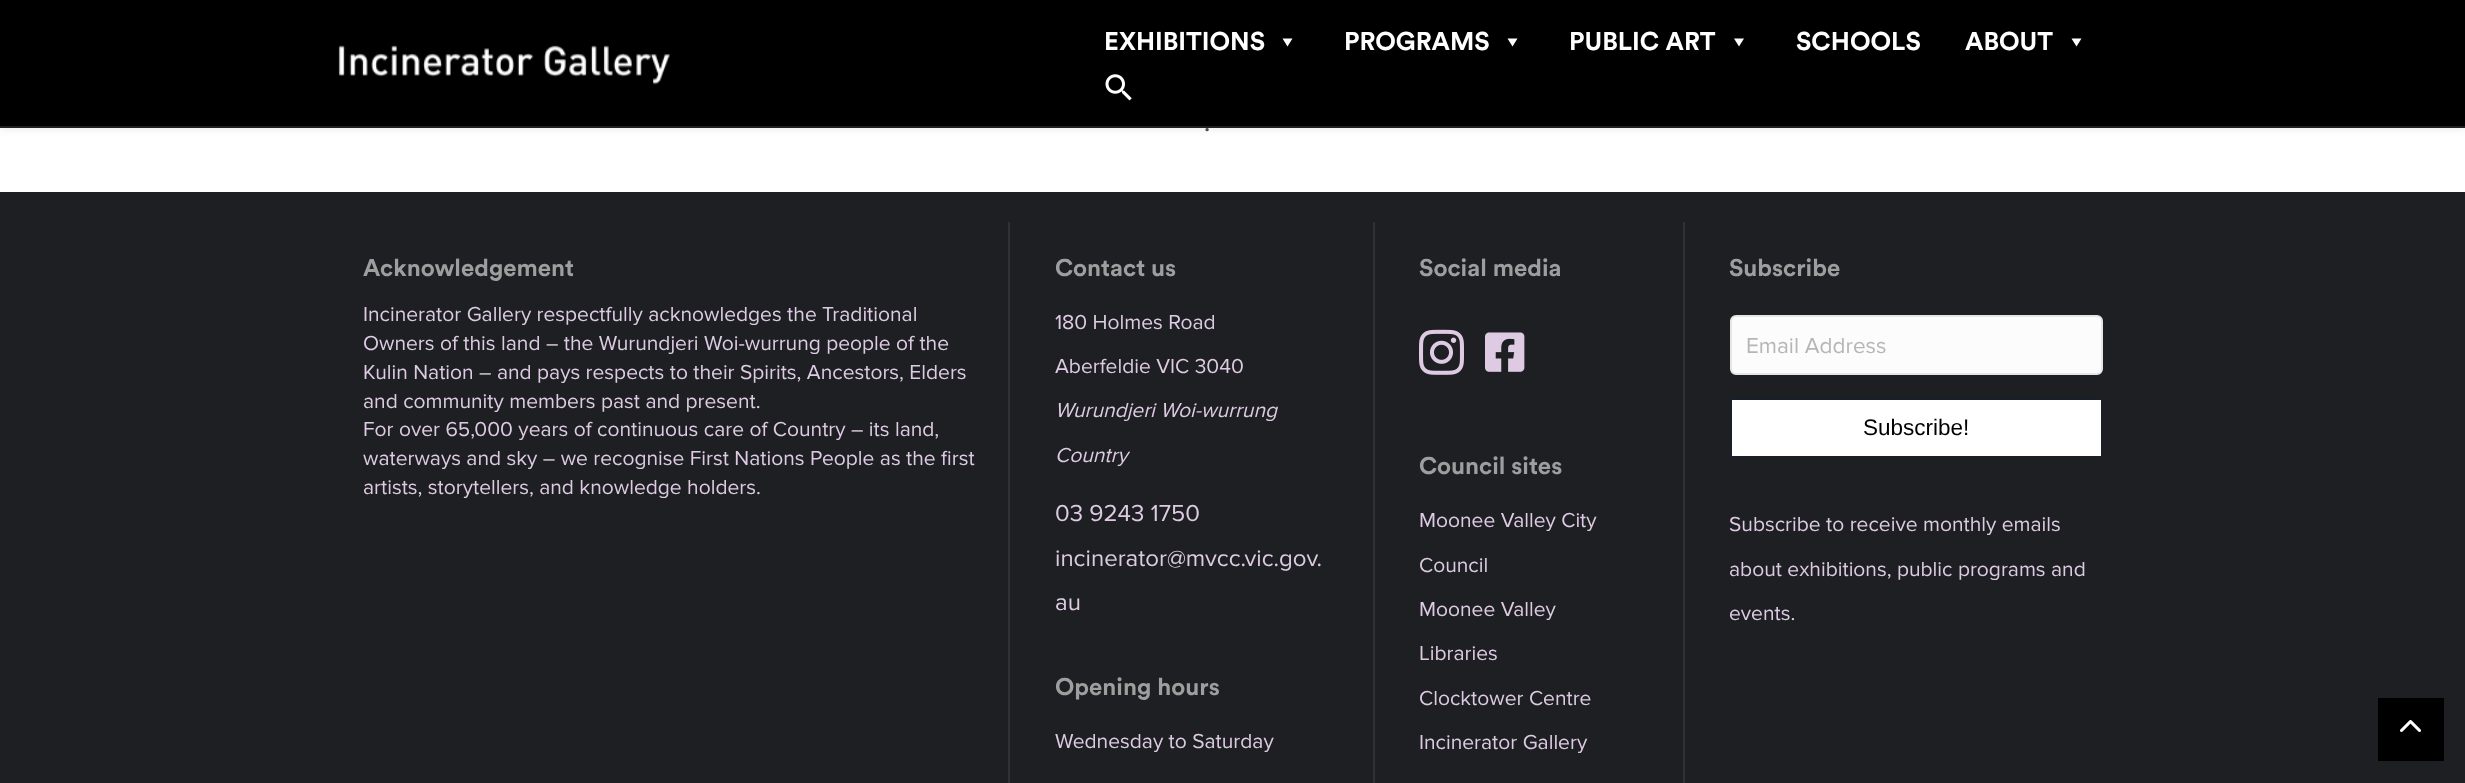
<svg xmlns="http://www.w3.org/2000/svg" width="2465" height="783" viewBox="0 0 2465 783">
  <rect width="100%" height="100%" fill="rgb(255,255,255)"/>
  <rect x="0" y="0" width="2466" height="128" fill="rgba(0,0,0,0.1)" filter="blur(5px)"/>
  <rect x="0" y="0" width="2465" height="126" fill="rgb(0,0,0)"/>
  <rect x="0" y="126" width="2465" height="2" fill="rgb(33,33,33)"/>
  <text x="1104" y="50" font-family="Circular" font-size="25.5" font-weight="bold" fill="rgb(255,255,255)">EXHIBITIONS</text>
  <path d="M1292.5 38.5L1287.5 46.5L1282.5 38.5Z" fill="rgb(255,255,255)"/>
  <text x="1344" y="50" font-family="Circular" font-size="25.5" font-weight="bold" fill="rgb(255,255,255)">PROGRAMS</text>
  <path d="M1517.5 38.5L1512.5 46.5L1507.5 38.5Z" fill="rgb(255,255,255)"/>
  <text x="1569" y="50" font-family="Circular" font-size="25.5" font-weight="bold" fill="rgb(255,255,255)">PUBLIC ART</text>
  <path d="M1744 38.5L1739 46.5L1734 38.5Z" fill="rgb(255,255,255)"/>
  <g font-family="Circular" font-size="25.5" font-weight="bold" fill="rgb(255,255,255)">
    <text x="1796" y="50">SCHOOLS</text>
    <text x="1965" y="50">ABOUT</text>
  </g>
  <path d="M2081.5 38.5L2076.5 46.5L2071.5 38.5Z" fill="rgb(255,255,255)"/>
  <image x="1105" y="74" width="27" height="27" href="pic1.png"/>
  <image x="338" y="45" width="332" height="40" href="pic2.png"/>
  <text x="1204" y="131" font-family="Proxima Nova" font-size="24" font-weight="bold" fill="rgb(76,76,76)">.</text>
  <rect x="0" y="192" width="2465" height="591" fill="rgb(29,31,35)"/>
  <text x="363" y="276" font-family="Circular" font-size="24" font-weight="bold" fill="rgb(158,158,158)">Acknowledgement</text>
  <g font-family="Proxima Nova" font-size="21" fill="rgb(222,203,227)">
    <text>
      <tspan x="363" y="321">Incinerator Gallery respectfully acknowledges the Traditional</tspan>
      <tspan x="363" y="350">Owners of this land – the Wurundjeri Woi-wurrung people of the</tspan>
      <tspan x="363" y="379">Kulin Nation – and pays respects to their Spirits, Ancestors, Elders</tspan>
      <tspan x="363" y="408">and community members past and present.</tspan>
      <tspan x="363" y="436">For over 65,000 years of continuous care of Country – its land,</tspan>
      <tspan x="363" y="465">waterways and sky – we recognise First Nations People as the first</tspan>
      <tspan x="363" y="494">artists, storytellers, and knowledge holders.</tspan>
    </text>
  </g>
  <rect x="1373" y="222" width="2" height="561" fill="rgb(47,49,53)"/>
  <rect x="1008" y="222" width="2" height="561" fill="rgb(47,49,53)"/>
  <text x="1055" y="276" font-family="Circular" font-size="24" font-weight="bold" fill="rgb(158,158,158)">Contact us</text>
  <g font-family="Proxima Nova" font-size="21" fill="rgb(222,203,227)">
    <text x="1055" y="329">180 Holmes Road</text>
    <text x="1055" y="373">Aberfeldie VIC 3040</text>
  </g>
  <g font-family="Proxima Nova" font-size="21" font-style="italic" fill="rgb(222,203,227)">
    <text x="1055" y="417">Wurundjeri Woi-wurrung</text>
    <text x="1055" y="462">Country</text>
  </g>
  <g font-family="Proxima Nova" font-size="24" fill="rgb(222,203,227)">
    <text>
      <tspan x="1055" y="521">03 9243 1750</tspan>
      <tspan x="1055" y="566">incinerator@mvcc.vic.gov.</tspan>
      <tspan x="1055" y="610">au</tspan>
    </text>
  </g>
  <text x="1055" y="695" font-family="Circular" font-size="24" font-weight="bold" fill="rgb(158,158,158)">Opening hours</text>
  <text x="1055" y="748" font-family="Proxima Nova" font-size="21" fill="rgb(222,203,227)">Wednesday to Saturday</text>
  <text x="1419" y="276" font-family="Circular" font-size="24" font-weight="bold" fill="rgb(158,158,158)">Social media</text>
  <image x="1419" y="329" width="45" height="46" href="pic3.png"/>
  <image x="1485" y="332" width="40" height="40" href="pic4.png"/>
  <text x="1419" y="474" font-family="Circular" font-size="24" font-weight="bold" fill="rgb(158,158,158)">Council sites</text>
  <g font-family="Proxima Nova" font-size="21" fill="rgb(222,203,227)">
    <text x="1419" y="527">Moonee Valley City</text>
    <text x="1419" y="572">Council</text>
    <text x="1419" y="616">Moonee Valley</text>
    <text x="1419" y="660">Libraries</text>
    <text x="1419" y="705">Clocktower Centre</text>
    <text x="1419" y="749">Incinerator Gallery</text>
  </g>
  <rect x="1683" y="222" width="2" height="561" fill="rgb(47,49,53)"/>
  <text x="1729" y="276" font-family="Circular" font-size="24" font-weight="bold" fill="rgb(158,158,158)">Subscribe</text>
  <rect x="1731" y="316" width="371" height="58" rx="5" fill="rgb(252,252,252)" stroke="rgb(230,230,230)" stroke-width="2"/>
  <text x="1746" y="353" font-family="Proxima Nova" font-size="22.5" fill="rgb(182,182,182)">Email Address</text>
  <rect x="1731" y="399" width="371" height="58" fill="rgb(255,255,255)" stroke="rgb(25,31,41)" stroke-width="2"/>
  <text x="1863" y="435" font-family="Liberation Sans" font-size="22.5" fill="rgb(0,0,0)">Subscribe!</text>
  <g font-family="Proxima Nova" font-size="21" fill="rgb(222,203,227)">
    <text x="1729" y="531">Subscribe to receive monthly emails</text>
    <text x="1729" y="576">about exhibitions, public programs and</text>
    <text x="1729" y="620">events.</text>
  </g>
  <rect x="2378" y="698" width="66" height="63" fill="rgb(0,0,0)"/>
  <image x="2400" y="720" width="21" height="12" href="pic5.png"/>
</svg>
